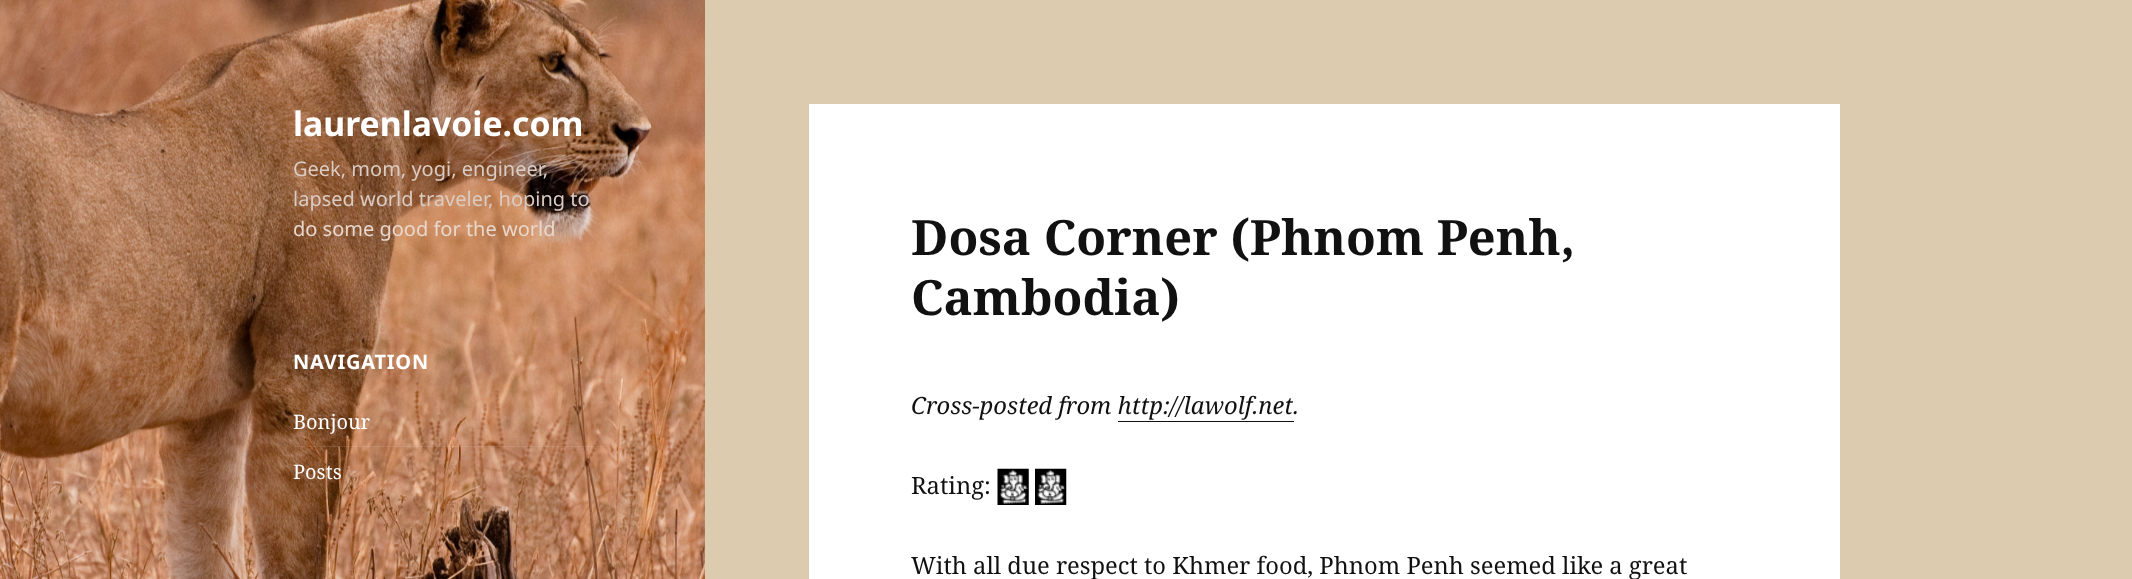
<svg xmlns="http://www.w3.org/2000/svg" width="2132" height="579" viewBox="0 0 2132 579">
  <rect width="100%" height="100%" fill="rgb(221,203,175)"/>
  <image x="0" y="0" width="705" height="579" href="pic1.png"/>
  <text x="293" y="136" font-family="Noto Sans" font-size="33.75" font-weight="bold" fill="rgb(255,255,255)">laurenlavoie.com</text>
  <g font-family="Noto Sans" font-size="20" fill="rgb(218,204,195)">
    <text>
      <tspan x="293" y="176">Geek, mom, yogi, engineer,</tspan>
      <tspan x="293" y="206">lapsed world traveler, hoping to</tspan>
    </text>
  </g>
  <text x="293" y="236" font-family="Noto Sans" font-size="20" fill="rgb(232,215,204)">do some good for the world</text>
  <text x="293" y="369" font-family="Noto Sans" font-size="20" font-weight="bold" letter-spacing="0.75" fill="rgb(255,255,255)">NAVIGATION</text>
  <text x="293" y="429" font-family="Noto Serif" font-size="20" fill="rgb(255,255,255)">Bonjour</text>
  <rect x="293" y="446" width="310" height="1" fill="rgba(255,255,255,0.1)"/>
  <text x="293" y="479" font-family="Noto Serif" font-size="20" fill="rgb(255,255,255)">Posts</text>
  <rect x="809" y="104" width="1031" height="475" fill="rgb(255,255,255)"/>
  <g font-family="Noto Serif" font-size="48.75" font-weight="bold" fill="rgb(17,17,17)">
    <text>
      <tspan x="911" y="255">Dosa Corner (Phnom Penh,</tspan>
      <tspan x="911" y="315">Cambodia)</tspan>
    </text>
  </g>
  <text x="911" y="414" font-family="Noto Serif" font-size="23.75" font-style="italic" fill="rgb(17,17,17)">Cross-posted from http://lawolf.net.</text>
  <rect x="1118" y="421" width="176" height="1" fill="rgb(17,17,17)"/>
  <text x="911" y="494" font-family="Noto Serif" font-size="23.75" fill="rgb(17,17,17)">Rating:</text>
  <image x="997" y="468" width="32" height="37" href="pic2.png"/>
  <image x="1035" y="468" width="32" height="37" href="pic3.png"/>
  <text x="911" y="574" font-family="Noto Serif" font-size="23.75" fill="rgb(17,17,17)">With all due respect to Khmer food, Phnom Penh seemed like a great</text>
</svg>
